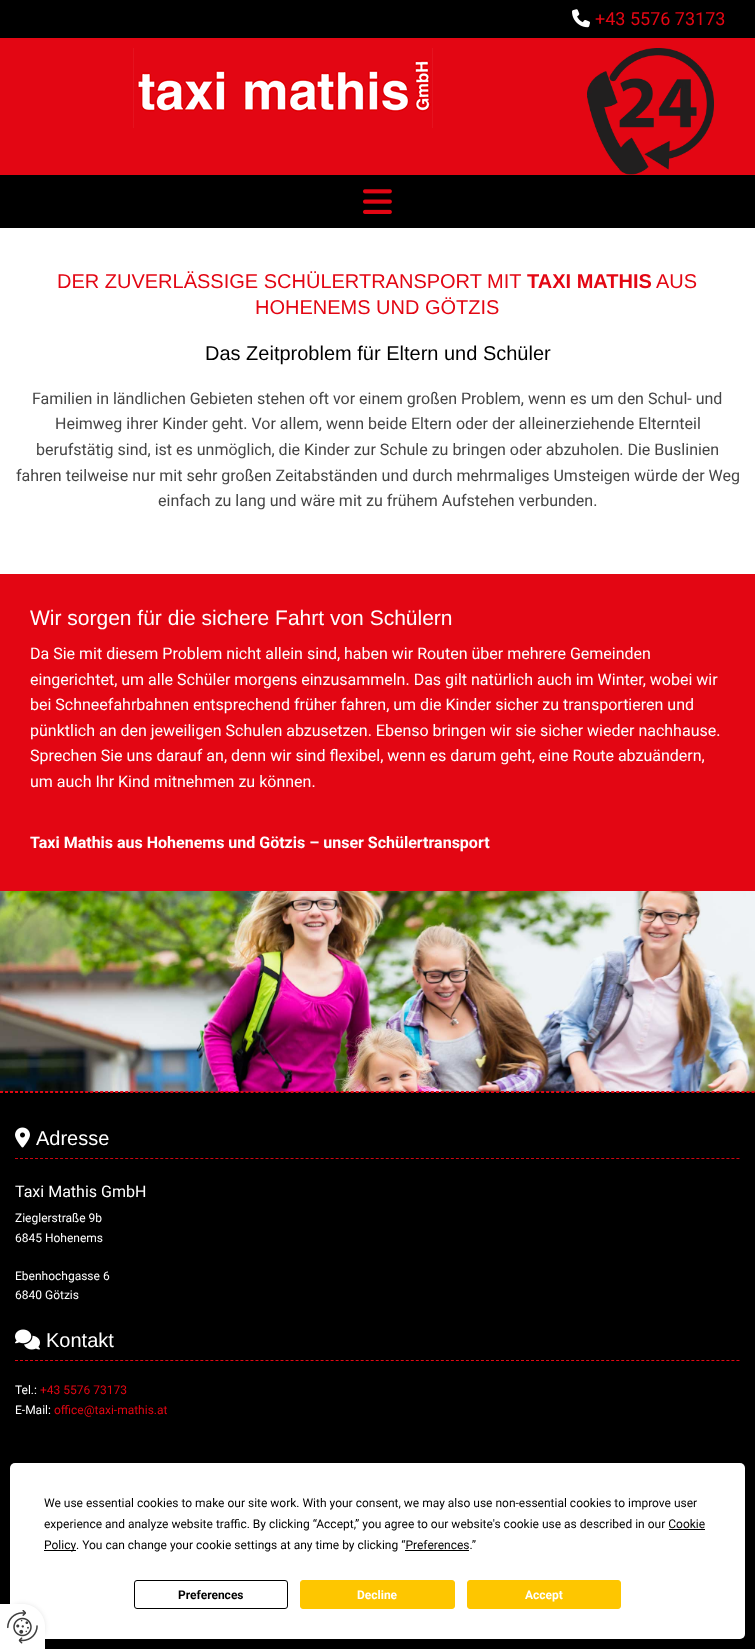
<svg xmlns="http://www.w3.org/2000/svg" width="755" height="1649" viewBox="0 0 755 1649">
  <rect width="100%" height="100%" fill="rgb(255,255,255)"/>
  <rect x="0" y="0" width="755" height="38" fill="rgb(0,0,0)"/>
  <image x="572" y="9" width="18" height="19" href="pic1.png"/>
  <text x="595" y="25" font-family="Roboto" font-size="18" fill="rgb(227,6,19)">+43 5576 73173</text>
  <rect x="0" y="38" width="755" height="137" fill="rgb(227,6,19)"/>
  <image x="133" y="48" width="300" height="80" href="pic2.png"/>
  <image x="587" y="48" width="127" height="127" href="pic3.png"/>
  <rect x="0" y="175" width="755" height="53" fill="rgb(0,0,0)"/>
  <image x="363" y="189" width="29" height="25" href="pic4.png"/>
  <text x="57" y="288" font-family="Liberation Sans" font-size="20" fill="rgb(227,6,19)">DER ZUVERLÄSSIGE SCHÜLERTRANSPORT MIT</text>
  <text x="527" y="288" font-family="Liberation Sans" font-size="20" font-weight="bold" fill="rgb(227,6,19)">TAXI MATHIS</text>
  <g font-family="Liberation Sans" font-size="20" fill="rgb(227,6,19)">
    <text x="656" y="288">AUS</text>
    <text x="255" y="314">HOHENEMS UND GÖTZIS</text>
  </g>
  <text x="205" y="360" font-family="Liberation Sans" font-size="20" fill="rgb(0,0,0)">Das Zeitproblem für Eltern und Schüler</text>
  <g font-family="Roboto" font-size="16" fill="rgb(69,69,69)">
    <text x="32" y="404">Familien in ländlichen Gebieten stehen oft vor einem großen Problem, wenn es um den Schul- und</text>
    <text x="55" y="429">Heimweg ihrer Kinder geht. Vor allem, wenn beide Eltern oder der alleinerziehende Elternteil</text>
    <text x="36" y="455">berufstätig sind, ist es unmöglich, die Kinder zur Schule zu bringen oder abzuholen. Die Buslinien</text>
    <text x="16" y="481">fahren teilweise nur mit sehr großen Zeitabständen und durch mehrmaliges Umsteigen würde der Weg</text>
    <text x="158" y="506">einfach zu lang und wäre mit zu frühem Aufstehen verbunden.</text>
  </g>
  <rect x="0" y="574" width="755" height="317" fill="rgb(227,6,19)"/>
  <text x="30" y="625" font-family="Liberation Sans" font-size="21" fill="rgb(255,255,255)">Wir sorgen für die sichere Fahrt von Schülern</text>
  <g font-family="Roboto" font-size="16" fill="rgb(255,255,255)">
    <text>
      <tspan x="30" y="659">Da Sie mit diesem Problem nicht allein sind, haben wir Routen über mehrere Gemeinden</tspan>
      <tspan x="30" y="685">eingerichtet, um alle Schüler morgens einzusammeln. Das gilt natürlich auch im Winter, wobei wir</tspan>
      <tspan x="30" y="710">bei Schneefahrbahnen entsprechend früher fahren, um die Kinder sicher zu transportieren und</tspan>
      <tspan x="30" y="736">pünktlich an den jeweiligen Schulen abzusetzen. Ebenso bringen wir sie sicher wieder nachhause.</tspan>
      <tspan x="30" y="761">Sprechen Sie uns darauf an, denn wir sind flexibel, wenn es darum geht, eine Route abzuändern,</tspan>
      <tspan x="30" y="787">um auch Ihr Kind mitnehmen zu können.</tspan>
    </text>
  </g>
  <text x="30" y="848" font-family="Roboto" font-size="16" font-weight="bold" fill="rgb(255,255,255)">Taxi Mathis aus Hohenems und Götzis – unser Schülertransport</text>
  <image x="0" y="891" width="755" height="201" href="pic5.png"/>
  <path d="M0 1091.5H755" fill="none" stroke="rgb(227,6,19)" stroke-dasharray="3 2.01"/>
  <rect x="0" y="1092" width="755" height="557" fill="rgb(0,0,0)"/>
  <path d="M0 1092.5H755" fill="none" stroke="rgb(227,6,19)" stroke-dasharray="3 2.01"/>
  <path d="M15 1158.5H740" fill="none" stroke="rgb(204,5,17)" stroke-dasharray="3 2.01"/>
  <image x="15" y="1127" width="15" height="21" href="pic6.png"/>
  <text x="36" y="1145" font-family="Liberation Sans" font-size="20" fill="rgb(255,255,255)">Adresse</text>
  <text x="15" y="1197" font-family="Roboto" font-size="16" fill="rgb(255,255,255)">Taxi Mathis GmbH</text>
  <g font-family="Roboto" font-size="12" fill="rgb(255,255,255)">
    <text>
      <tspan x="15" y="1222">Zieglerstraße 9b</tspan>
      <tspan x="15" y="1242">6845 Hohenems</tspan>
    </text>
    <text>
      <tspan x="15" y="1280">Ebenhochgasse 6</tspan>
      <tspan x="15" y="1299">6840 Götzis</tspan>
    </text>
  </g>
  <path d="M15 1360.5H740" fill="none" stroke="rgb(227,6,19)" stroke-dasharray="3 2.01"/>
  <image x="15" y="1329" width="25" height="21" href="pic7.png"/>
  <text x="46" y="1347" font-family="Liberation Sans" font-size="20" fill="rgb(255,255,255)">Kontakt</text>
  <text x="15" y="1394" font-family="Roboto" font-size="12" fill="rgb(255,255,255)">Tel.:</text>
  <text x="40" y="1394" font-family="Roboto" font-size="12" fill="rgb(227,6,19)">+43 5576 73173</text>
  <text x="15" y="1414" font-family="Roboto" font-size="12" fill="rgb(255,255,255)">E-Mail:</text>
  <text x="54" y="1414" font-family="Roboto" font-size="12" fill="rgb(227,6,19)">office@taxi-mathis.at</text>
  <rect x="10" y="1463" width="735" height="176" rx="5" fill="rgb(255,255,255)"/>
  <g font-family="Roboto" font-size="12" fill="rgb(0,0,0)">
    <text>
      <tspan x="44" y="1507">We use essential cookies to make our site work. With your consent, we may also use non-essential cookies to improve user</tspan>
      <tspan x="44" y="1528">experience and analyze website traffic. By clicking “Accept,” you agree to our website's cookie use as described in our Cookie</tspan>
    </text>
  </g>
  <rect x="44" y="1550" width="32" height="1" fill="rgb(0,0,0)"/>
  <text x="44" y="1549" font-family="Roboto" font-size="12" fill="rgb(0,0,0)">Policy</text>
  <rect x="669" y="1529" width="36" height="1" fill="rgb(0,0,0)"/>
  <text x="76" y="1549" font-family="Roboto" font-size="12" fill="rgb(0,0,0)">. You can change your cookie settings at any time by clicking “Preferences.”</text>
  <rect x="405" y="1550" width="64" height="1" fill="rgb(0,0,0)"/>
  <rect x="134.5" y="1580.5" width="153" height="28" rx="2.5" fill="none" stroke="rgb(0,0,0)"/>
  <text x="178" y="1599" font-family="Roboto" font-size="12" font-weight="bold" fill="rgb(0,0,0)">Preferences</text>
  <rect x="300.5" y="1580.5" width="154" height="28" rx="2.5" fill="rgb(254,198,0)" stroke="rgb(254,198,0)"/>
  <text x="357" y="1599" font-family="Roboto" font-size="12" font-weight="bold" fill="rgb(255,255,255)">Decline</text>
  <rect x="467.5" y="1580.5" width="153" height="28" rx="2.5" fill="rgb(254,198,0)" stroke="rgb(254,198,0)"/>
  <text x="525" y="1599" font-family="Roboto" font-size="12" font-weight="bold" fill="rgb(255,255,255)">Accept</text>
  <rect x="0" y="1604" width="45" height="45" rx="22.5" fill="rgba(0,0,0,0.1)" filter="blur(2.5px)"/>
  <path d="M0 1604H22.5C35 1604 45 1614 45 1626.5V1649H0Z" fill="rgb(255,255,255)"/>
  <image x="7" y="1610" width="31" height="34" href="pic8.png"/>
</svg>
